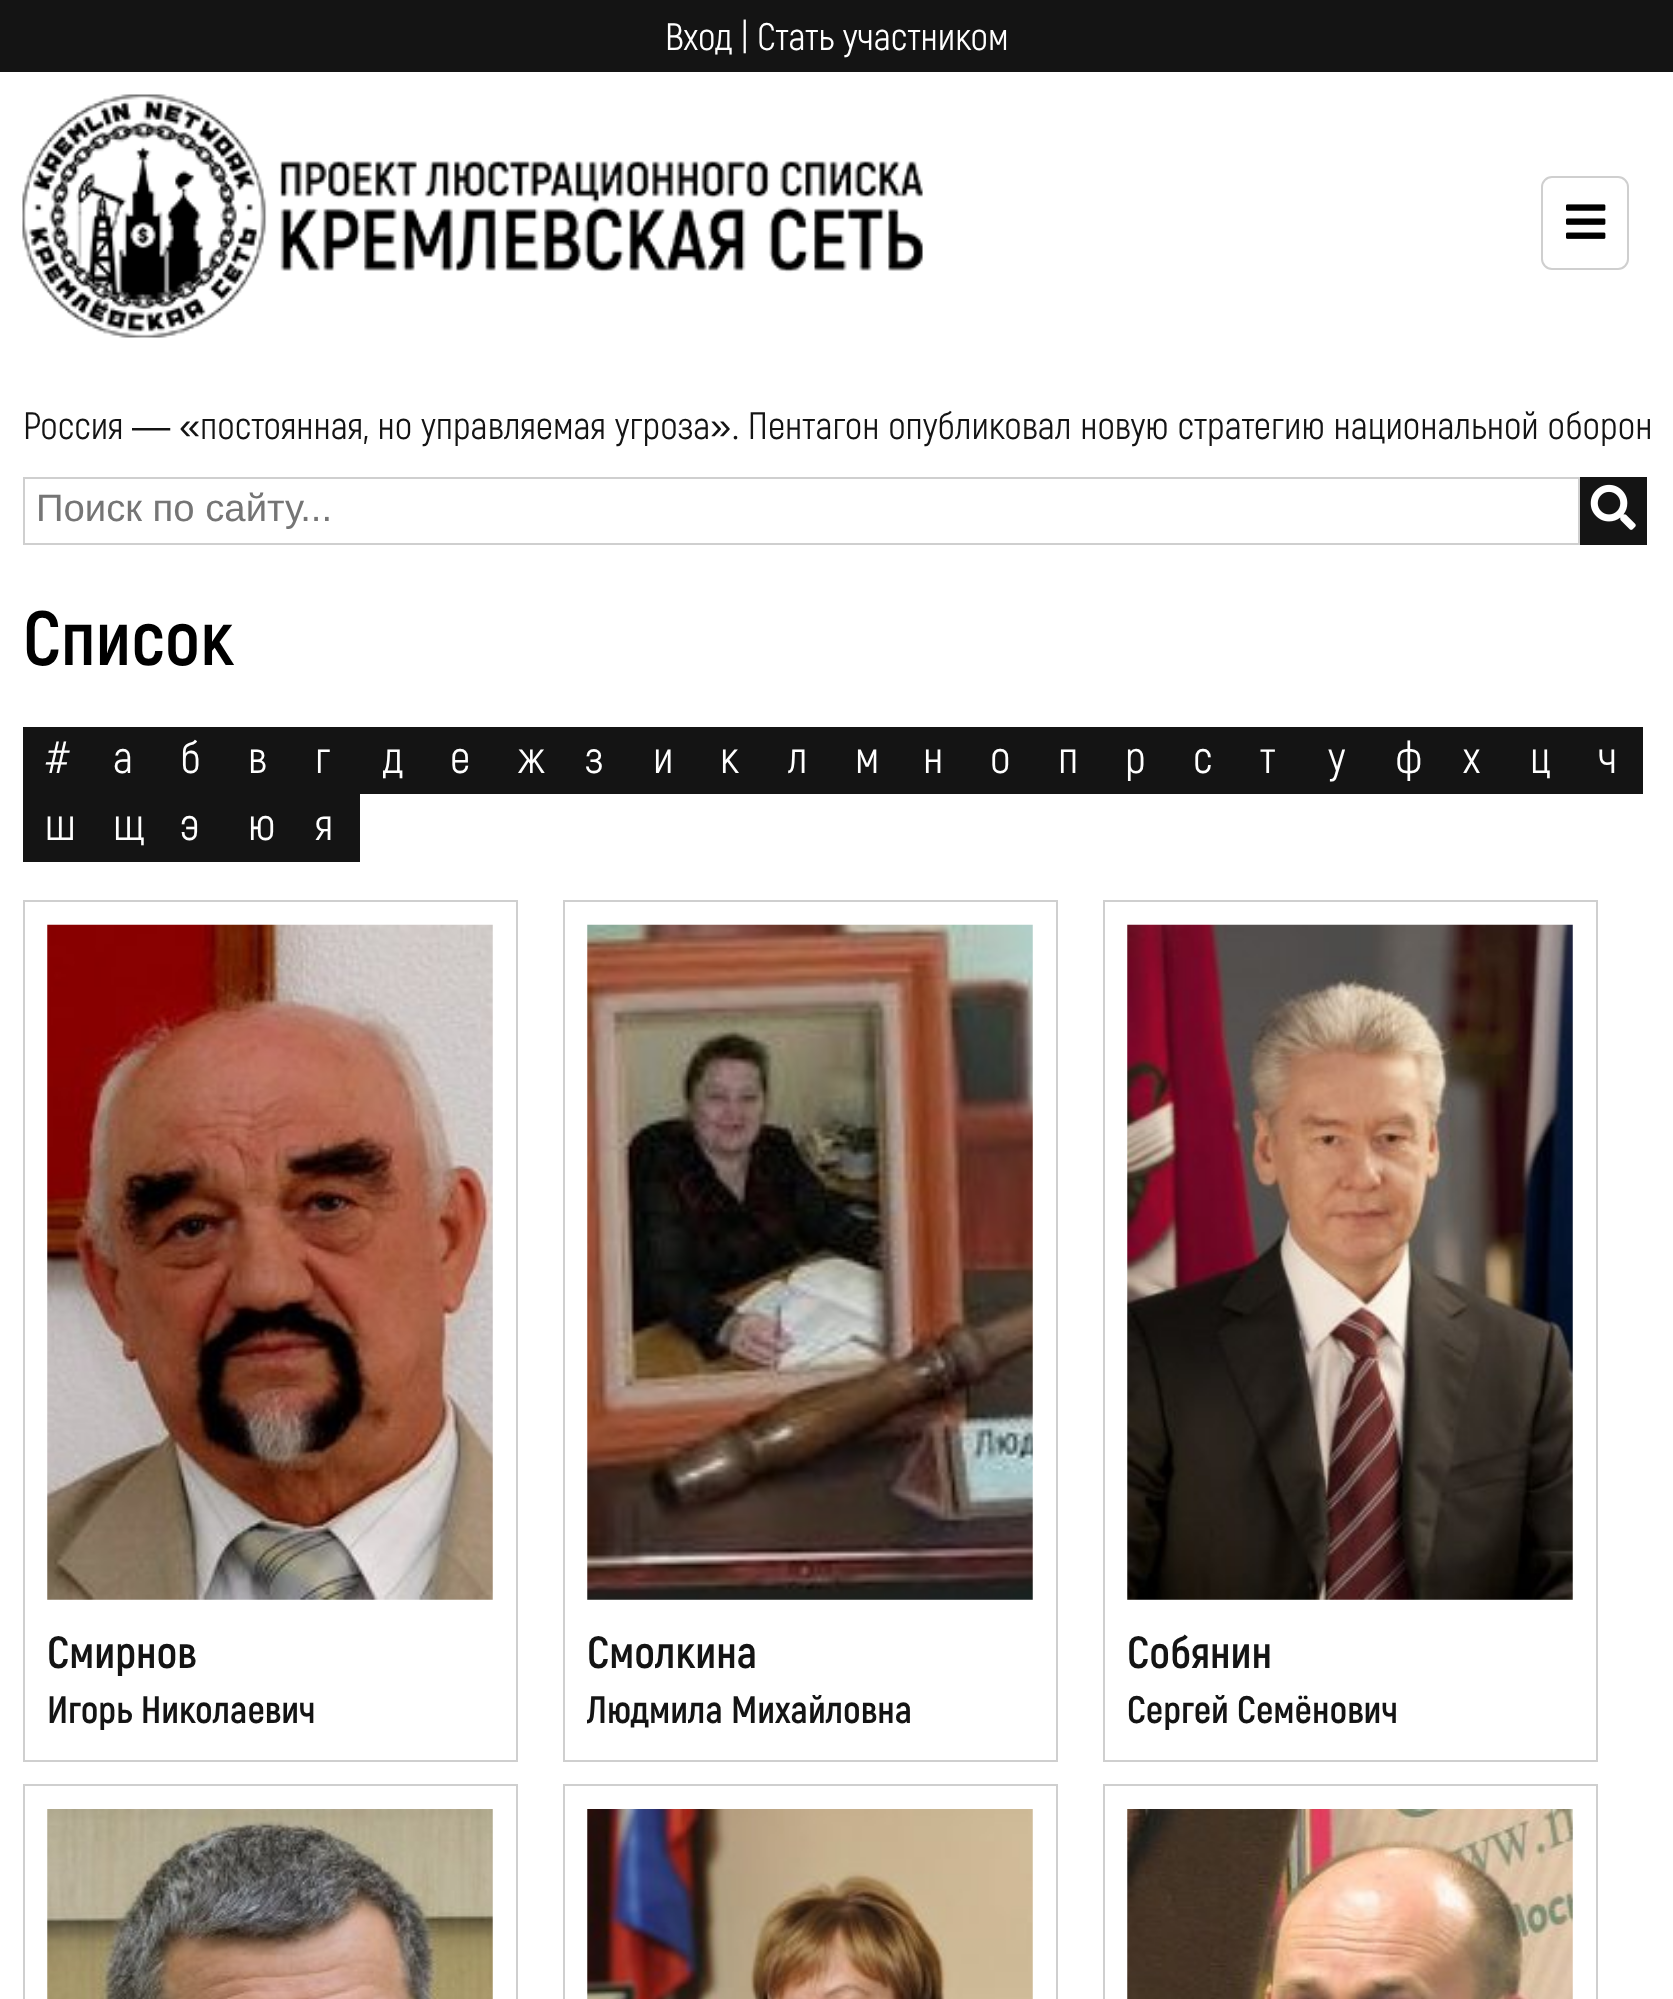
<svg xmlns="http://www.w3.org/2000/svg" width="1673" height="1999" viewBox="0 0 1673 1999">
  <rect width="100%" height="100%" fill="rgb(255,255,255)"/>
  <rect x="0" y="0" width="1673" height="72" fill="rgb(20,20,20)"/>
  <text x="665" y="50" font-family="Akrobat" font-size="38.25" fill="rgb(255,255,255)">Вход | Стать участником</text>
  <image x="22" y="94" width="901" height="244" href="pic1.png"/>
  <rect x="1542" y="177" width="86" height="92" rx="10" fill="none" stroke="rgb(207,207,207)" stroke-width="2"/>
  <image x="1566" y="204" width="40" height="35" href="pic2.png"/>
  <text x="23" y="439" font-family="Akrobat" font-size="38.25" fill="rgb(20,20,20)">Россия</text>
  <g font-family="Liberation Sans" font-size="38.25" fill="rgb(20,20,20)">
    <text x="132" y="439">—</text>
    <text x="179" y="439">«</text>
  </g>
  <text x="200" y="439" font-family="Akrobat" font-size="38.25" fill="rgb(20,20,20)">постоянная, но управляемая угроза</text>
  <text x="710" y="439" font-family="Liberation Sans" font-size="38.25" fill="rgb(20,20,20)">»</text>
  <text x="732" y="439" font-family="Akrobat" font-size="38.25" fill="rgb(20,20,20)">. Пентагон опубликовал новую стратегию национальной оборон</text>
  <rect x="24" y="478" width="1555" height="66" fill="none" stroke="rgb(207,207,207)" stroke-width="2"/>
  <text x="36" y="521" font-family="Liberation Sans" font-size="38.25" fill="rgb(117,117,117)">Поиск по сайту...</text>
  <rect x="1580" y="477" width="67" height="68" fill="rgb(20,20,20)"/>
  <image x="1590" y="484" width="46" height="46" href="pic3.png"/>
  <text x="23" y="665" font-family="Akrobat" font-size="76.5" font-weight="bold" fill="rgb(0,0,0)">Список</text>
  <rect x="23" y="727" width="1620" height="67" fill="rgb(20,20,20)"/>
  <g font-family="Akrobat" font-size="45" fill="rgb(255,255,255)">
    <text x="45" y="773">#</text>
    <text x="113" y="773">а</text>
    <text x="180" y="773">б</text>
    <text x="248" y="773">в</text>
    <text x="315" y="773">г</text>
    <text x="383" y="773">д</text>
    <text x="450" y="773">е</text>
    <text x="518" y="773">ж</text>
    <text x="585" y="773">з</text>
    <text x="653" y="773">и</text>
    <text x="720" y="773">к</text>
    <text x="788" y="773">л</text>
    <text x="855" y="773">м</text>
    <text x="923" y="773">н</text>
    <text x="990" y="773">о</text>
    <text x="1058" y="773">п</text>
    <text x="1125" y="773">р</text>
    <text x="1193" y="773">с</text>
    <text x="1260" y="773">т</text>
    <text x="1328" y="773">у</text>
    <text x="1395" y="773">ф</text>
    <text x="1463" y="773">х</text>
    <text x="1530" y="773">ц</text>
    <text x="1598" y="773">ч</text>
  </g>
  <rect x="23" y="794" width="337" height="68" fill="rgb(20,20,20)"/>
  <g font-family="Akrobat" font-size="45" fill="rgb(255,255,255)">
    <text x="45" y="840">ш</text>
    <text x="113" y="840">щ</text>
    <text x="180" y="840">э</text>
    <text x="248" y="840">ю</text>
    <text x="315" y="840">я</text>
  </g>
  <rect x="24" y="901" width="493" height="860" fill="none" stroke="rgb(207,207,207)" stroke-width="2"/>
  <image x="47" y="924" width="446" height="676" href="pic4.png"/>
  <text x="47" y="1668" font-family="Akrobat" font-size="45" font-weight="bold" fill="rgb(20,20,20)">Смирнов</text>
  <text x="47" y="1723" font-family="Akrobat" font-size="38.25" font-weight="bold" fill="rgb(20,20,20)">Игорь Николаевич</text>
  <rect x="564" y="901" width="493" height="860" fill="none" stroke="rgb(207,207,207)" stroke-width="2"/>
  <image x="587" y="924" width="446" height="676" href="pic5.png"/>
  <text x="587" y="1668" font-family="Akrobat" font-size="45" font-weight="bold" fill="rgb(20,20,20)">Смолкина</text>
  <text x="587" y="1723" font-family="Akrobat" font-size="38.25" font-weight="bold" fill="rgb(20,20,20)">Людмила Михайловна</text>
  <rect x="1104" y="901" width="493" height="860" fill="none" stroke="rgb(207,207,207)" stroke-width="2"/>
  <image x="1127" y="924" width="446" height="676" href="pic6.png"/>
  <text x="1127" y="1668" font-family="Akrobat" font-size="45" font-weight="bold" fill="rgb(20,20,20)">Собянин</text>
  <text x="1127" y="1723" font-family="Akrobat" font-size="38.25" font-weight="bold" fill="rgb(20,20,20)">Сергей Семёнович</text>
  <rect x="24" y="1785" width="493" height="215" fill="none" stroke="rgb(207,207,207)" stroke-width="2"/>
  <image x="47" y="1809" width="446" height="190" href="pic7.png"/>
  <rect x="564" y="1785" width="493" height="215" fill="none" stroke="rgb(207,207,207)" stroke-width="2"/>
  <image x="587" y="1809" width="446" height="190" href="pic8.png"/>
  <rect x="1104" y="1785" width="493" height="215" fill="none" stroke="rgb(207,207,207)" stroke-width="2"/>
  <image x="1127" y="1809" width="446" height="190" href="pic9.png"/>
</svg>
